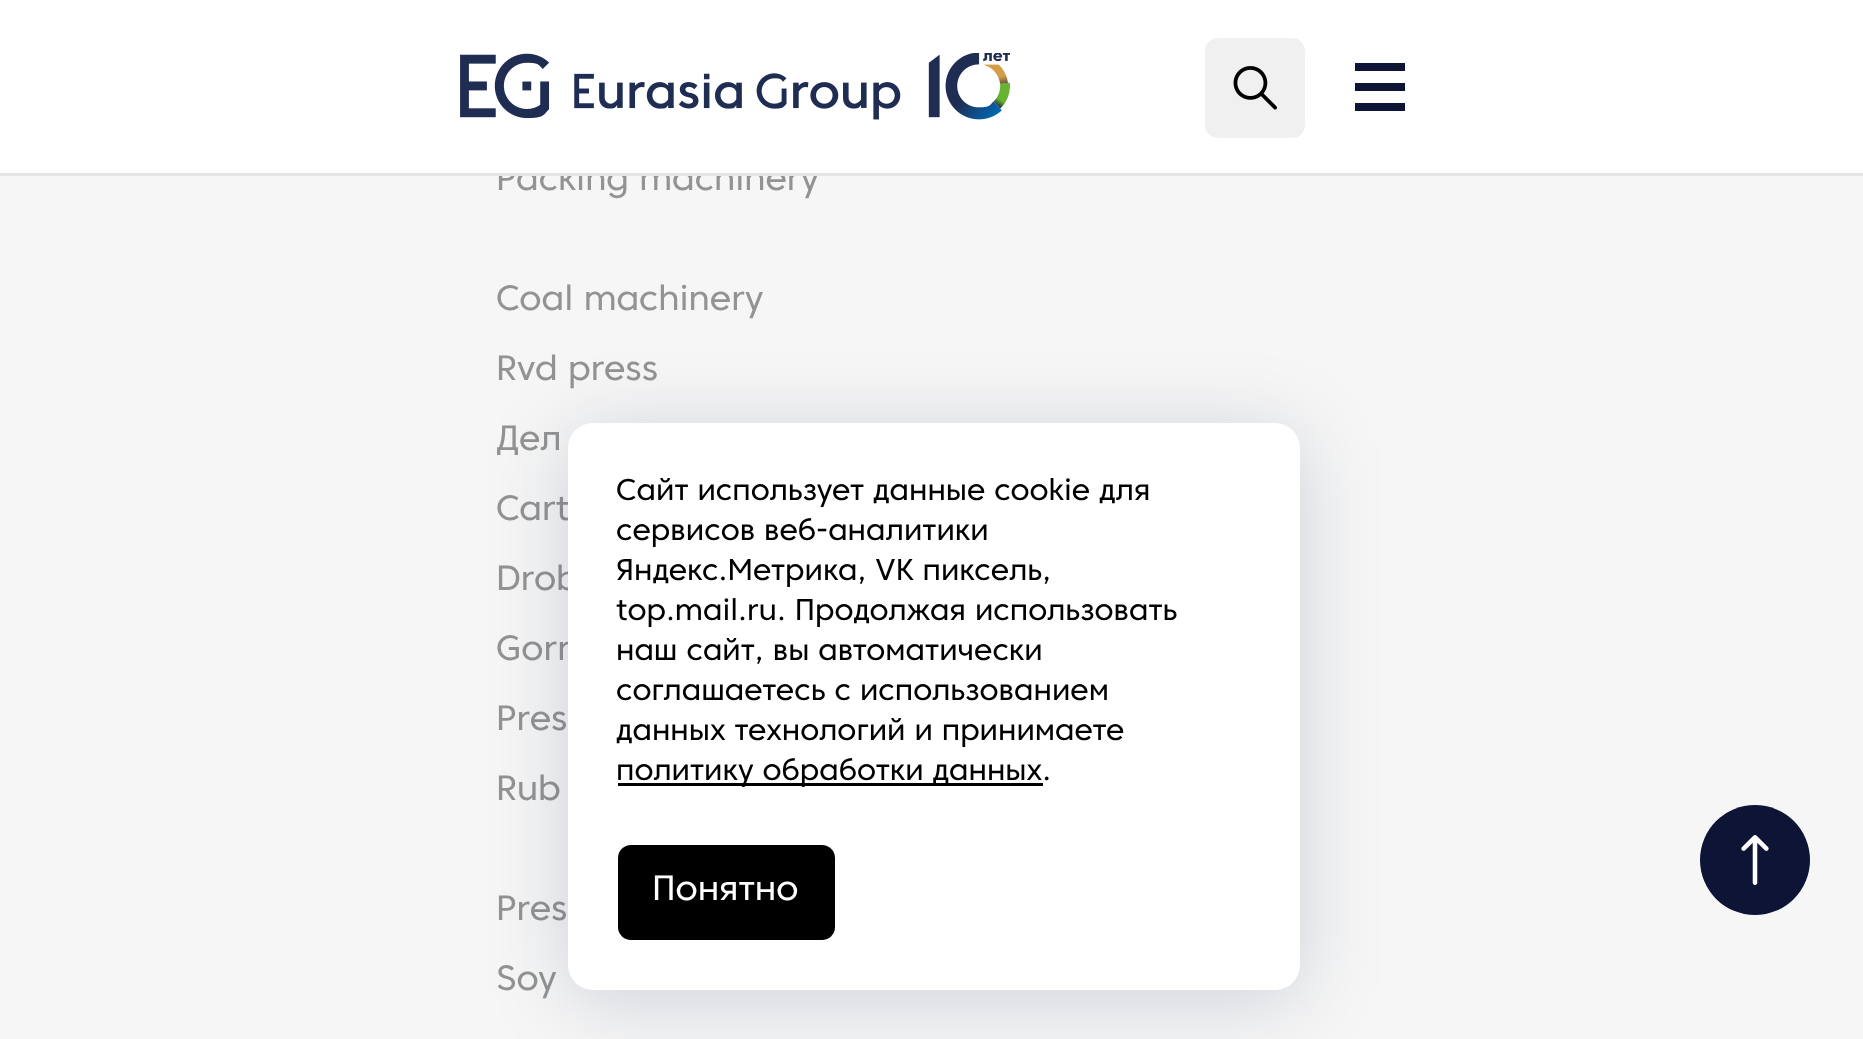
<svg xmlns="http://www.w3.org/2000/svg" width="1863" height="1039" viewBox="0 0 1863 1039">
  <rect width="100%" height="100%" fill="rgb(246,246,246)"/>
  <text x="496" y="190" font-family="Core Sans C" font-size="35" fill="rgb(147,147,147)">Packing machinery</text>
  <rect x="0" y="0" width="1863" height="173" fill="rgb(255,255,255)"/>
  <rect x="0" y="173" width="1863" height="3" fill="rgb(228,228,228)"/>
  <image x="460" y="53" width="550" height="67" href="pic1.png"/>
  <rect x="1205" y="38" width="100" height="100" rx="13" fill="rgb(240,240,241)"/>
  <image x="1233" y="66" width="44" height="44" href="pic2.png"/>
  <rect x="1355" y="63" width="50" height="8" fill="rgb(13,20,54)"/>
  <rect x="1355" y="83" width="50" height="8" fill="rgb(13,20,54)"/>
  <rect x="1355" y="103" width="50" height="8" fill="rgb(13,20,54)"/>
  <g font-family="Core Sans C" font-size="35" fill="rgb(147,147,147)">
    <text x="496" y="310">Coal machinery</text>
    <text x="496" y="380">Rvd press</text>
    <text x="496" y="450">Дел</text>
    <text x="496" y="520">Cart</text>
    <text x="496" y="590">Drob</text>
    <text x="496" y="660">Gorn</text>
    <text x="496" y="730">Pres</text>
    <text x="496" y="800">Rub</text>
    <text x="496" y="920">Pres</text>
    <text x="496" y="990">Soy</text>
  </g>
  <rect x="568" y="433" width="732" height="567" rx="25" fill="rgba(0,16,61,0.16)" filter="blur(40px)"/>
  <rect x="568" y="423" width="732" height="567" rx="25" fill="rgb(255,255,255)"/>
  <g font-family="Core Sans C" font-size="30" fill="rgb(0,0,0)">
    <text>
      <tspan x="616" y="500">Сайт использует данные cookie для</tspan>
      <tspan x="616" y="540">сервисов веб-аналитики</tspan>
      <tspan x="616" y="580">Яндекс.Метрика, VK пиксель,</tspan>
      <tspan x="616" y="620">top.mail.ru. Продолжая использовать</tspan>
      <tspan x="616" y="660">наш сайт, вы автоматически</tspan>
      <tspan x="616" y="700">соглашаетесь с использованием</tspan>
      <tspan x="616" y="740">данных технологий и принимаете</tspan>
    </text>
  </g>
  <rect x="618" y="783" width="425" height="3" fill="rgb(0,0,0)"/>
  <text x="616" y="780" font-family="Core Sans C" font-size="30" fill="rgb(0,0,0)">политику обработки данных.</text>
  <rect x="618" y="845" width="217" height="95" rx="13" fill="rgb(0,0,0)"/>
  <text x="652" y="900" font-family="Core Sans C" font-size="35" fill="rgb(255,255,255)">Понятно</text>
  <circle cx="1755" cy="860" r="55" fill="rgb(13,20,54)"/>
  <image x="1741" y="835" width="28" height="50" href="pic3.png"/>
</svg>
